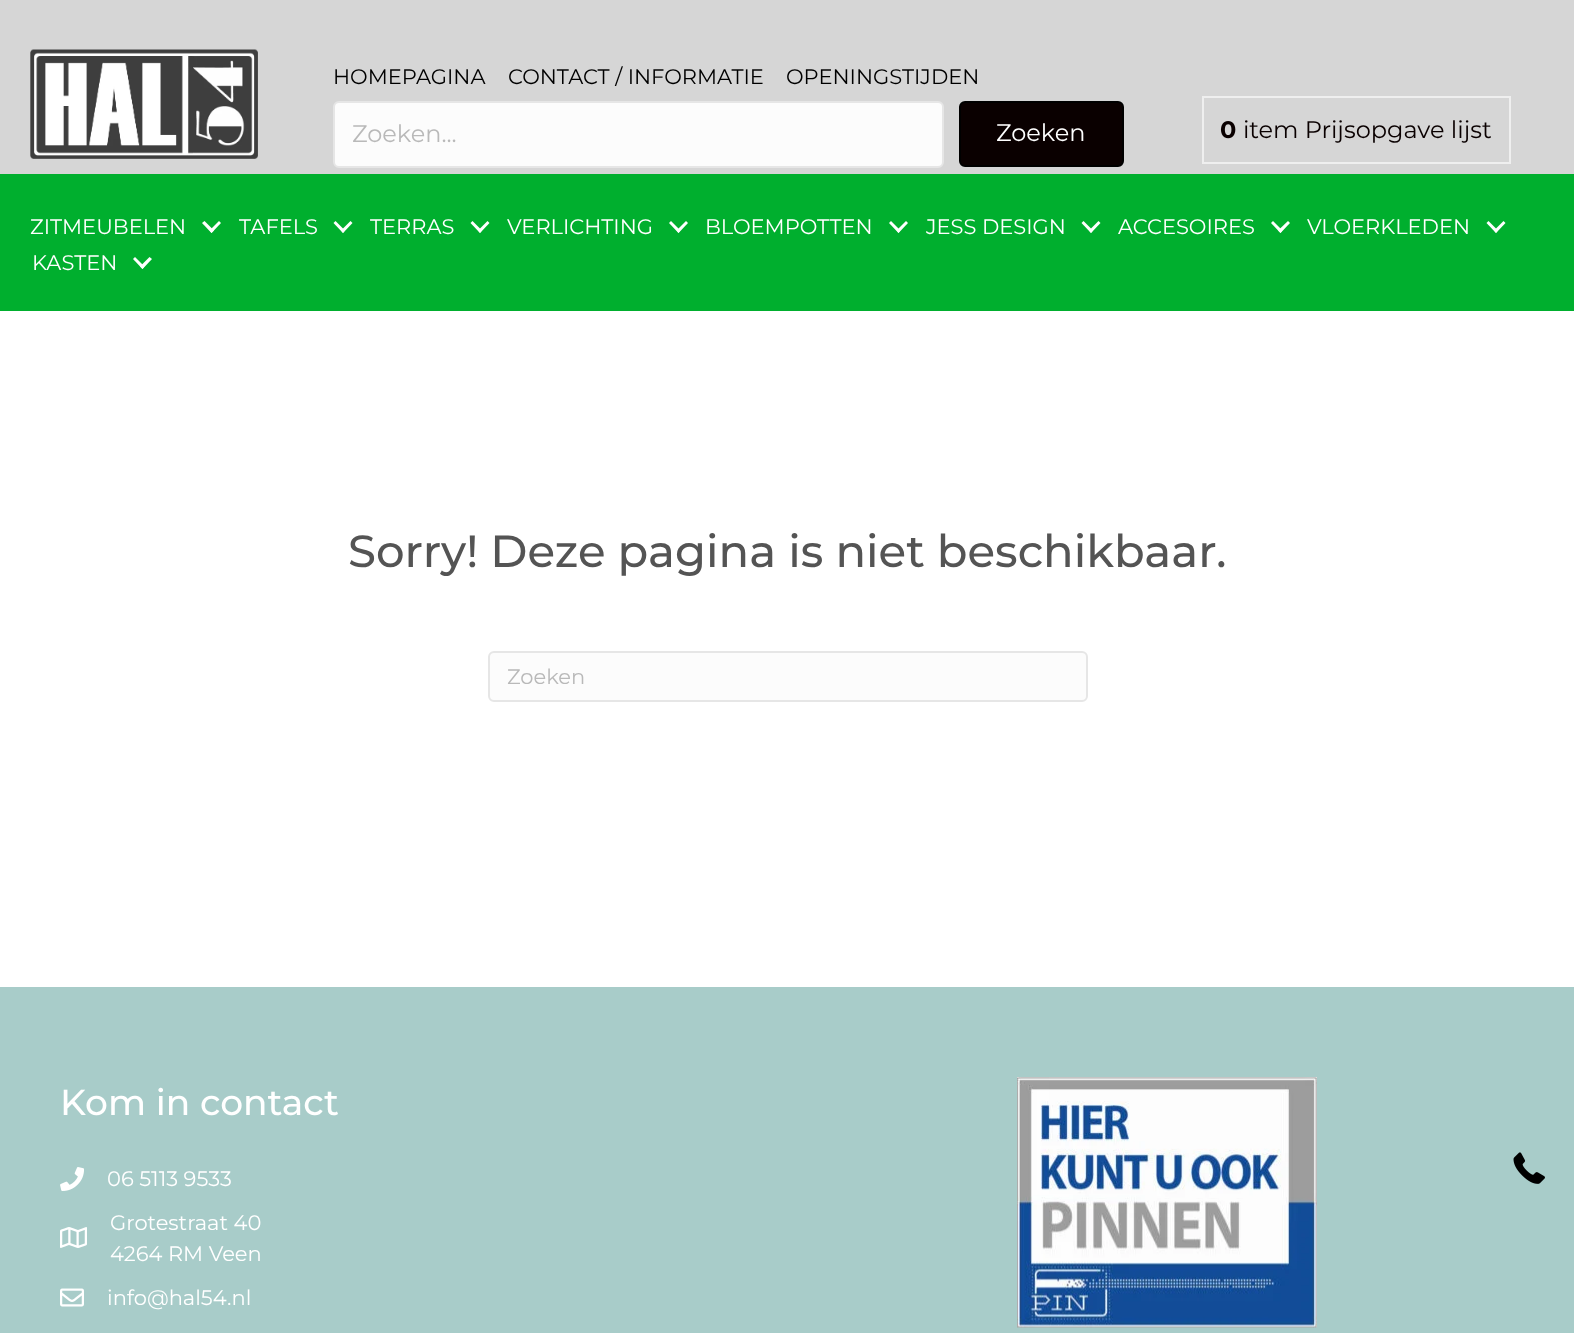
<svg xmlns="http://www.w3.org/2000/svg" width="1574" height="1333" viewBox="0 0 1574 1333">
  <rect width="100%" height="100%" fill="rgb(255,255,255)"/>
  <rect x="0" y="0" width="1574" height="174" fill="rgb(214,214,214)"/>
  <image x="30" y="49" width="228" height="110" href="pic1.png"/>
  <g font-family="Montserrat" font-size="21" fill="rgb(0,0,0)">
    <text x="333" y="84">HOMEPAGINA</text>
    <text x="508" y="84">CONTACT / INFORMATIE</text>
    <text x="786" y="84">OPENINGSTIJDEN</text>
  </g>
  <rect x="334" y="102" width="609" height="65" rx="5" fill="rgb(252,252,252)" stroke="rgb(230,230,230)" stroke-width="2"/>
  <text x="352" y="142" font-family="Montserrat" font-size="24" fill="rgb(185,185,185)">Zoeken...</text>
  <rect x="960" y="102" width="163" height="64" rx="5" fill="rgb(10,0,0)" stroke="rgb(0,0,0)" stroke-width="2"/>
  <text x="996" y="141" font-family="Montserrat" font-size="24" fill="rgb(255,255,255)">Zoeken</text>
  <rect x="1203" y="97" width="307" height="66" fill="none" stroke="rgb(239,239,239)" stroke-width="2"/>
  <text x="1220" y="138" font-family="Montserrat" font-size="24" font-weight="bold" fill="rgb(10,0,0)">0</text>
  <text x="1243" y="138" font-family="Montserrat" font-size="24" fill="rgb(10,0,0)">item Prijsopgave lijst</text>
  <rect x="0" y="174" width="1574" height="137" fill="rgb(0,175,46)"/>
  <text x="30" y="234" font-family="Montserrat" font-size="21" fill="rgb(255,255,255)">ZITMEUBELEN</text>
  <path d="M219 221L221 223L211.5 233L209.5 230.5Z" fill="rgb(255,255,255)"/>
  <path d="M204.5 221L214 230.5L211.5 233L202 223Z" fill="rgb(255,255,255)"/>
  <text x="239" y="234" font-family="Montserrat" font-size="21" fill="rgb(255,255,255)">TAFELS</text>
  <path d="M350.5 221L352.5 223L343 233L341 230.5Z" fill="rgb(255,255,255)"/>
  <path d="M335.5 221L345 230.5L343 233L333.5 223Z" fill="rgb(255,255,255)"/>
  <text x="370" y="234" font-family="Montserrat" font-size="21" fill="rgb(255,255,255)">TERRAS</text>
  <path d="M487.5 221L489.5 223L480 233L478 230.5Z" fill="rgb(255,255,255)"/>
  <path d="M472.5 221L482 230.5L480 233L470.5 223Z" fill="rgb(255,255,255)"/>
  <text x="507" y="234" font-family="Montserrat" font-size="21" fill="rgb(255,255,255)">VERLICHTING</text>
  <path d="M686 221L688 223L678.5 233L676.5 230.5Z" fill="rgb(255,255,255)"/>
  <path d="M671 221L680.5 230.5L678.5 233L669 223Z" fill="rgb(255,255,255)"/>
  <text x="705" y="234" font-family="Montserrat" font-size="21" fill="rgb(255,255,255)">BLOEMPOTTEN</text>
  <path d="M906 221L908 223L898.5 233L896.5 230.5Z" fill="rgb(255,255,255)"/>
  <path d="M891 221L900.5 230.5L898.5 233L889 223Z" fill="rgb(255,255,255)"/>
  <text x="926" y="234" font-family="Montserrat" font-size="21" fill="rgb(255,255,255)">JESS DESIGN</text>
  <path d="M1098.5 221L1100.5 223L1091 233L1089 230.5Z" fill="rgb(255,255,255)"/>
  <path d="M1083.5 221L1093 230.5L1091 233L1081.5 223Z" fill="rgb(255,255,255)"/>
  <text x="1118" y="234" font-family="Montserrat" font-size="21" fill="rgb(255,255,255)">ACCESOIRES</text>
  <path d="M1288 221L1290 223L1280.5 233L1278 230.5Z" fill="rgb(255,255,255)"/>
  <path d="M1273 221L1282.5 230.5L1280.5 233L1271 223Z" fill="rgb(255,255,255)"/>
  <text x="1307" y="234" font-family="Montserrat" font-size="21" fill="rgb(255,255,255)">VLOERKLEDEN</text>
  <path d="M1503.5 221L1505.5 223L1496 233L1494 230.5Z" fill="rgb(255,255,255)"/>
  <path d="M1488.5 221L1498 230.5L1496 233L1486.5 223Z" fill="rgb(255,255,255)"/>
  <text x="32" y="270" font-family="Montserrat" font-size="21" fill="rgb(255,255,255)">KASTEN</text>
  <path d="M149.5 257L152 259L142.5 269L140 266.5Z" fill="rgb(255,255,255)"/>
  <path d="M135 257L144.5 266.5L142.5 269L133 259Z" fill="rgb(255,255,255)"/>
  <text x="348" y="567" font-family="Montserrat" font-size="45" font-weight="500" fill="rgb(84,84,84)">Sorry! Deze pagina is niet beschikbaar.</text>
  <rect x="489" y="652" width="598" height="49" rx="5" fill="rgb(252,252,252)" stroke="rgb(230,230,230)" stroke-width="2"/>
  <text x="507" y="684" font-family="Montserrat" font-size="21" fill="rgb(185,185,185)">Zoeken</text>
  <rect x="0" y="987" width="1574" height="346" fill="rgb(168,204,201)"/>
  <text x="60" y="1115" font-family="Montserrat" font-size="36" font-weight="500" fill="rgb(255,255,255)">Kom in contact</text>
  <image x="60" y="1167" width="24" height="24" href="pic2.png"/>
  <text x="107" y="1186" font-family="Montserrat" font-size="21" fill="rgb(255,255,255)">06 5113 9533</text>
  <image x="60" y="1227" width="27" height="21" href="pic3.png"/>
  <g font-family="Montserrat" font-size="21" fill="rgb(255,255,255)">
    <text>
      <tspan x="110" y="1230">Grotestraat 40</tspan>
      <tspan x="110" y="1261">4264 RM Veen</tspan>
    </text>
  </g>
  <image x="60" y="1288" width="24" height="19" href="pic4.png"/>
  <text x="107" y="1305" font-family="Montserrat" font-size="21" fill="rgb(255,255,255)">info@hal54.nl</text>
  <image x="1017" y="1077" width="300" height="251" href="pic5.png"/>
  <image x="1513" y="1152" width="32" height="32" href="pic6.png"/>
</svg>
